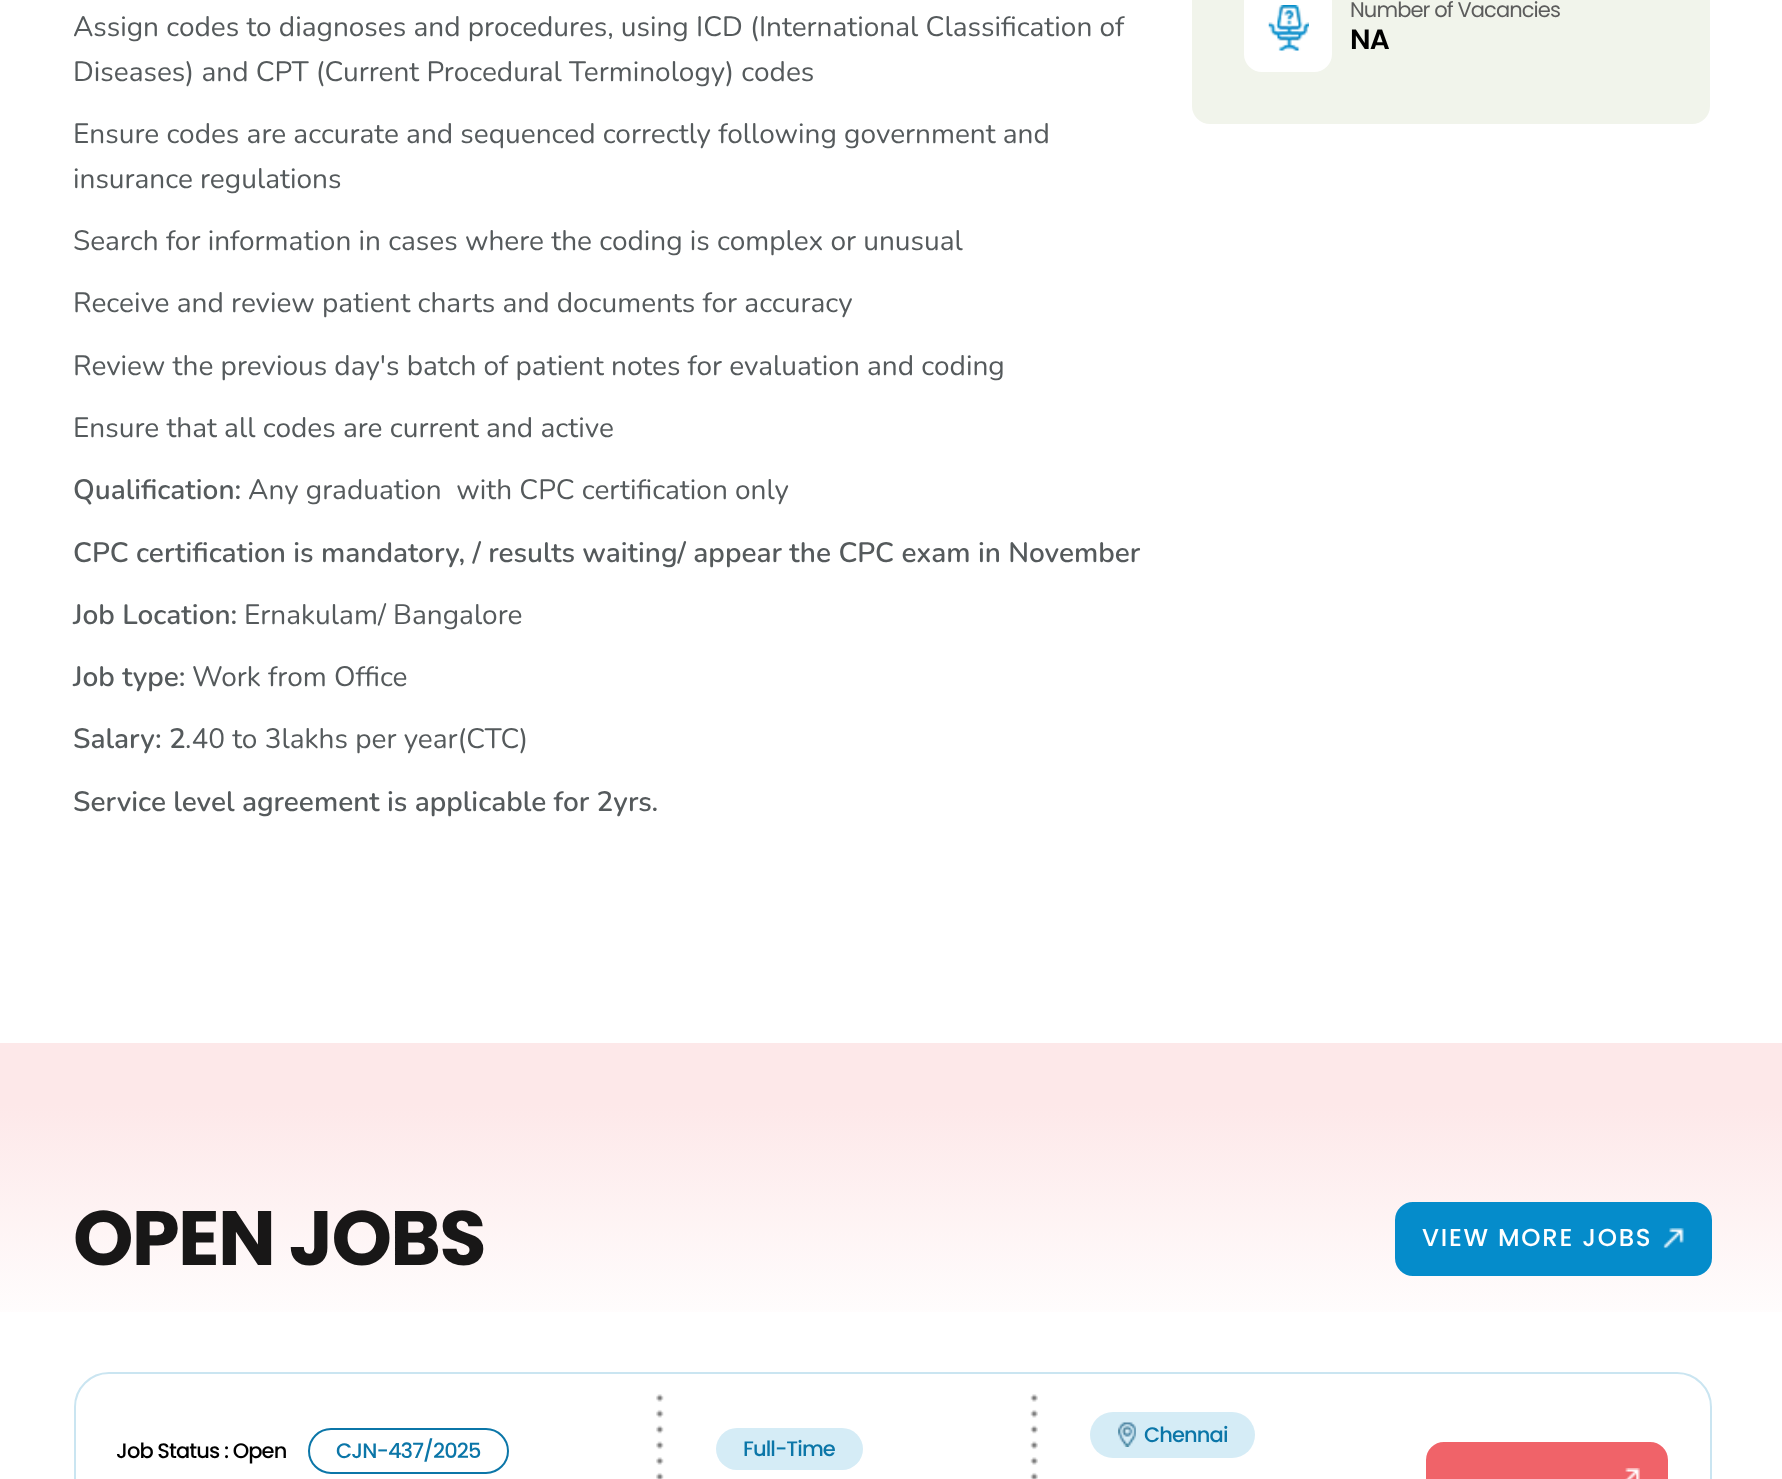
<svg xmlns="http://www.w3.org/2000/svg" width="1782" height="1479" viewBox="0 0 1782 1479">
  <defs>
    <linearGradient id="g1" gradientUnits="userSpaceOnUse" x1="892" y1="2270" x2="892" y2="1043"><stop offset="0.76" stop-color="rgb(255,255,255)"/><stop offset="0.95" stop-color="rgb(253,232,233)"/><stop offset="1" stop-color="rgb(253,232,233)"/></linearGradient>
  </defs>
  <rect width="100%" height="100%" fill="rgb(255,255,255)"/>
  <g font-family="Nunito" font-size="28" fill="rgb(85,90,92)">
    <text>
      <tspan x="73" y="36">Assign codes to diagnoses and procedures, using ICD (International Classification of</tspan>
      <tspan x="73" y="81">Diseases) and CPT (Current Procedural Terminology) codes</tspan>
    </text>
    <text>
      <tspan x="73" y="143">Ensure codes are accurate and sequenced correctly following government and</tspan>
      <tspan x="73" y="188">insurance regulations</tspan>
    </text>
    <text x="73" y="250">Search for information in cases where the coding is complex or unusual</text>
    <text x="73" y="312">Receive and review patient charts and documents for accuracy</text>
    <text x="73" y="375">Review the previous day's batch of patient notes for evaluation and coding</text>
    <text x="73" y="437">Ensure that all codes are current and active</text>
  </g>
  <text x="73" y="499" font-family="Nunito" font-size="28" font-weight="600" fill="rgb(85,90,92)">Qualification:</text>
  <text x="248" y="499" font-family="Nunito" font-size="28" fill="rgb(85,90,92)" xml:space="preserve">Any graduation  with CPC certification only</text>
  <g font-family="Nunito" font-size="28" font-weight="600" fill="rgb(85,90,92)">
    <text x="73" y="562">CPC certification is mandatory, / results waiting/ appear the CPC exam in November</text>
    <text x="73" y="624">Job Location:</text>
  </g>
  <text x="244" y="624" font-family="Nunito" font-size="28" fill="rgb(85,90,92)">Ernakulam/ Bangalore</text>
  <text x="73" y="686" font-family="Nunito" font-size="28" font-weight="600" fill="rgb(85,90,92)">Job type:</text>
  <text x="192" y="686" font-family="Nunito" font-size="28" fill="rgb(85,90,92)">Work from Office</text>
  <text x="73" y="748" font-family="Nunito" font-size="28" font-weight="600" fill="rgb(85,90,92)">Salary: 2</text>
  <text x="185" y="748" font-family="Nunito" font-size="28" fill="rgb(85,90,92)">.40 to 3lakhs per year(CTC)</text>
  <text x="73" y="811" font-family="Nunito" font-size="28" font-weight="600" fill="rgb(85,90,92)">Service level agreement is applicable for 2yrs.</text>
  <rect x="1192" y="-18" width="518" height="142" rx="18" fill="rgb(241,244,235)"/>
  <rect x="1244" y="-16" width="88" height="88" rx="18" fill="rgb(255,255,255)"/>
  <image x="1268" y="5" width="41" height="46" href="pic1.png"/>
  <text x="1350" y="17" font-family="Poppins" font-size="21" letter-spacing="-0.9" fill="rgb(92,92,92)">Number of Vacancies</text>
  <text x="1350" y="49" font-family="Poppins" font-size="28" font-weight="600" letter-spacing="-0.9" fill="rgb(0,0,0)">NA</text>
  <rect x="0" y="1043" width="1782" height="269" fill="url(#g1)"/>
  <text x="73" y="1265" font-family="Poppins" font-size="77" font-weight="bold" letter-spacing="-1.75" fill="rgb(24,23,23)">OPEN JOBS</text>
  <rect x="1396" y="1203" width="315" height="72" rx="17" fill="rgb(5,140,203)" stroke="rgb(5,140,203)" stroke-width="2"/>
  <text x="1422" y="1246" font-family="Poppins" font-size="24.5" font-weight="500" letter-spacing="1.75" fill="rgb(255,255,255)">VIEW MORE JOBS</text>
  <image x="1663" y="1228" width="21" height="21" href="pic2.png"/>
  <rect x="75" y="1373" width="1636" height="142" rx="34" fill="none" stroke="rgb(202,229,241)" stroke-width="2"/>
  <image x="656" y="1394" width="8" height="85" href="pic3.png"/>
  <image x="1030" y="1394" width="8" height="85" href="pic4.png"/>
  <rect x="1090" y="1412" width="165" height="46" rx="23" fill="rgb(213,236,246)"/>
  <image x="1118" y="1422" width="18" height="25" href="pic5.png"/>
  <text x="1144" y="1442" font-family="Poppins" font-size="21" font-weight="500" letter-spacing="-0.9" fill="rgb(11,118,168)">Chennai</text>
  <text x="116" y="1458" font-family="Poppins" font-size="21" font-weight="500" letter-spacing="-0.9" fill="rgb(0,0,0)">Job Status : Open</text>
  <rect x="309" y="1429" width="199" height="44" rx="22" fill="none" stroke="rgb(11,118,168)" stroke-width="2"/>
  <text x="336" y="1458" font-family="Poppins" font-size="21" font-weight="500" letter-spacing="-0.9" fill="rgb(11,118,168)">CJN-437/2025</text>
  <rect x="716" y="1428" width="147" height="42" rx="21" fill="rgb(213,236,246)"/>
  <text x="743" y="1456" font-family="Poppins" font-size="21" font-weight="500" letter-spacing="-0.9" fill="rgb(11,118,168)">Full-Time</text>
  <rect x="1427" y="1443" width="240" height="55" rx="17" fill="rgb(240,99,105)" stroke="rgb(240,99,105)" stroke-width="2"/>
  <image x="1625" y="1468" width="15" height="11" href="pic6.png"/>
</svg>
